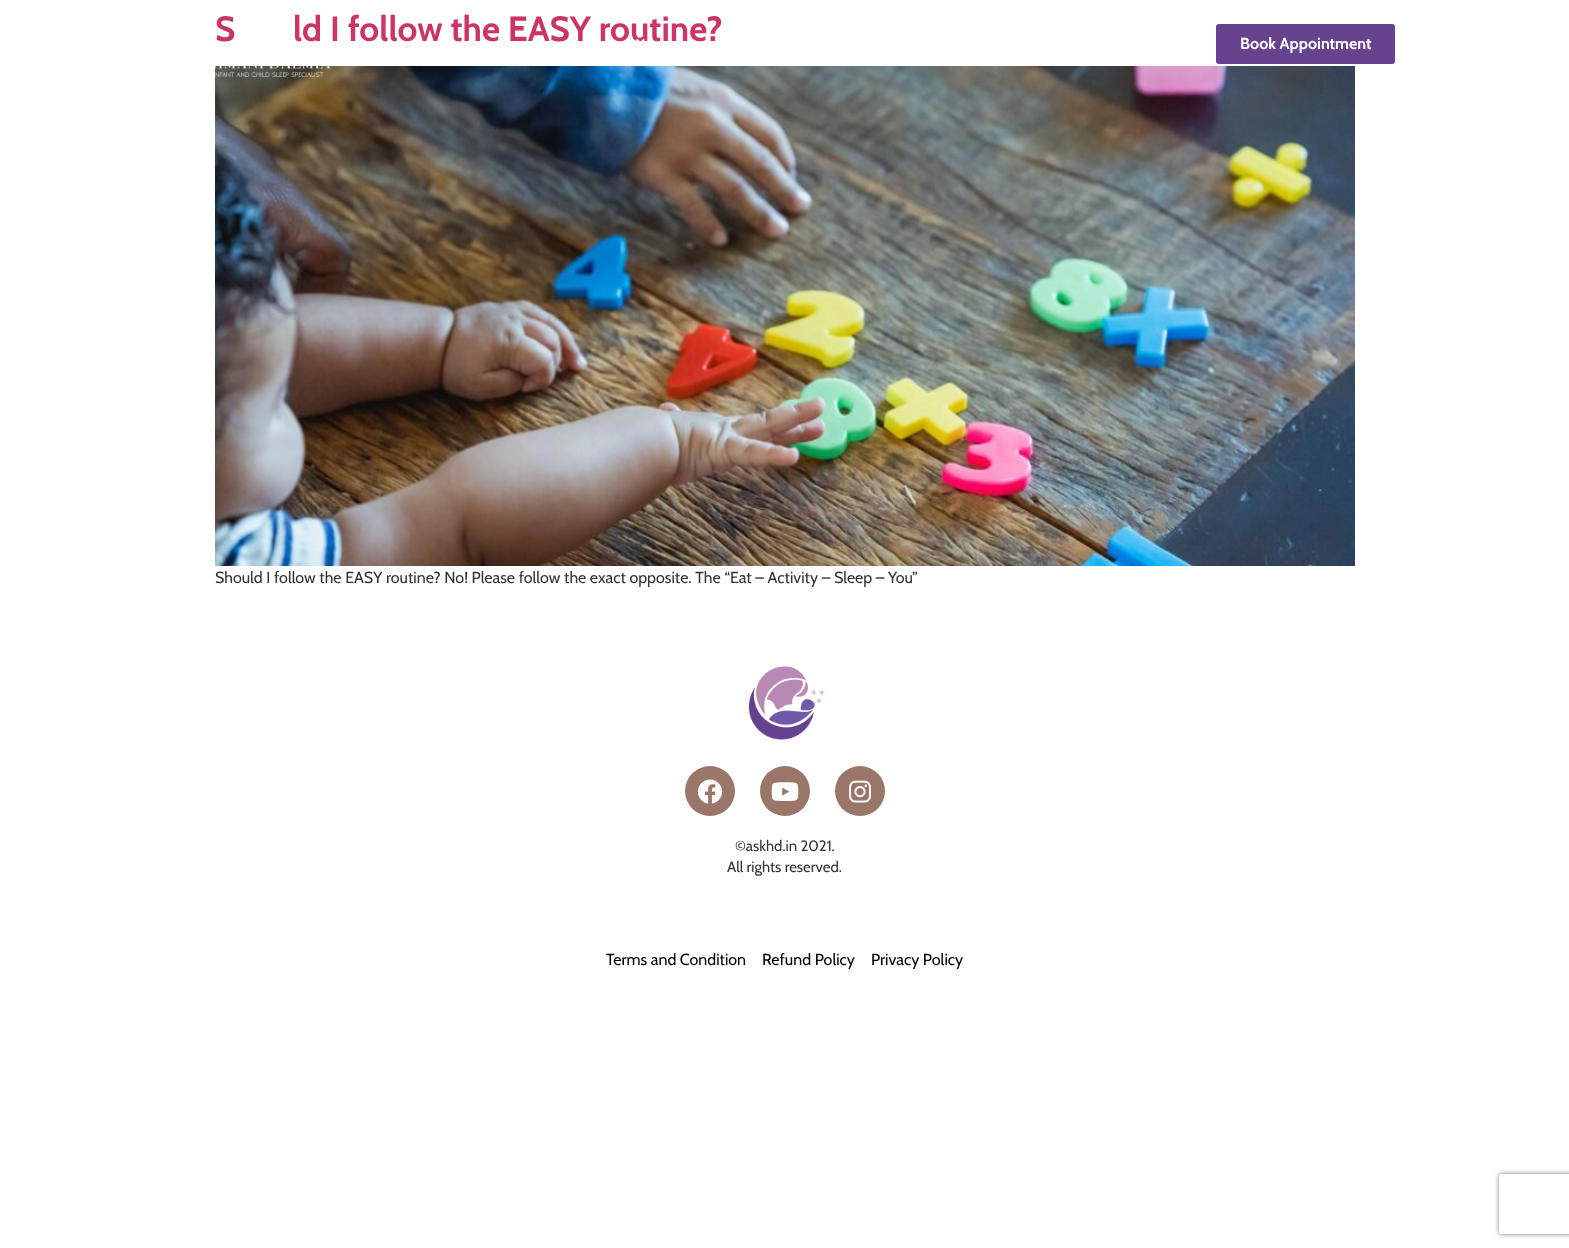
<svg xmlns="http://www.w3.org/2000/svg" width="1569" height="1248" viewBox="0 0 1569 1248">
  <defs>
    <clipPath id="clip1"><path d="M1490 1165H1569V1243H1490ZM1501 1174H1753C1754 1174 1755 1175 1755 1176V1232C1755 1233 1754 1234 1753 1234H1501C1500 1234 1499 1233 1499 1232V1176C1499 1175 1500 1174 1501 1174Z" clip-rule="evenodd"/></clipPath>
  </defs>
  <rect width="100%" height="100%" fill="rgb(255,255,255)"/>
  <g font-family="Cabin" font-size="35" font-weight="bold" fill="rgb(204,51,102)">
    <text x="215" y="41">S</text>
    <text x="293" y="41">ld I follow the EASY routine?</text>
  </g>
  <image x="215" y="66" width="1140" height="500" href="pic1.png"/>
  <text x="215" y="583" font-family="Cabin" font-size="16" fill="rgb(51,51,51)">Should I follow the EASY routine? No! Please follow the exact opposite. The “Eat – Activity – Sleep – You”</text>
  <image x="215" y="23" width="116" height="54" href="pic2.png"/>
  <image x="636" y="39" width="9" height="3" href="pic3.png"/>
  <rect x="1216" y="24" width="179" height="40" rx="3" fill="rgb(102,66,143)"/>
  <text x="1240" y="49" font-family="Cabin" font-size="16" font-weight="bold" fill="rgb(255,255,255)">Book Appointment</text>
  <image x="749" y="666" width="76" height="74" href="pic4.png"/>
  <circle cx="710" cy="791" r="25" fill="rgb(154,118,105)"/>
  <image x="697" y="779" width="26" height="25" href="pic5.png"/>
  <circle cx="785" cy="791" r="25" fill="rgb(154,118,105)"/>
  <image x="771" y="782" width="28" height="19" href="pic6.png"/>
  <circle cx="860" cy="791" r="25" fill="rgb(154,118,105)"/>
  <image x="849" y="780" width="22" height="23" href="pic7.png"/>
  <g font-family="Cabin" font-size="15" fill="rgb(51,51,51)">
    <text x="735" y="851">©askhd.in 2021.</text>
    <text x="727" y="872">All rights reserved.</text>
  </g>
  <g font-family="Cabin" font-size="16" fill="rgb(0,0,0)">
    <text x="606" y="965">Terms and Condition</text>
    <text x="762" y="965">Refund Policy</text>
    <text x="871" y="965">Privacy Policy</text>
  </g>
  <g clip-path="url(#clip1)">
    <rect x="1499" y="1174" width="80" height="60" rx="2" fill="rgb(128,128,128)" filter="blur(2.5px)"/>
  </g>
</svg>
